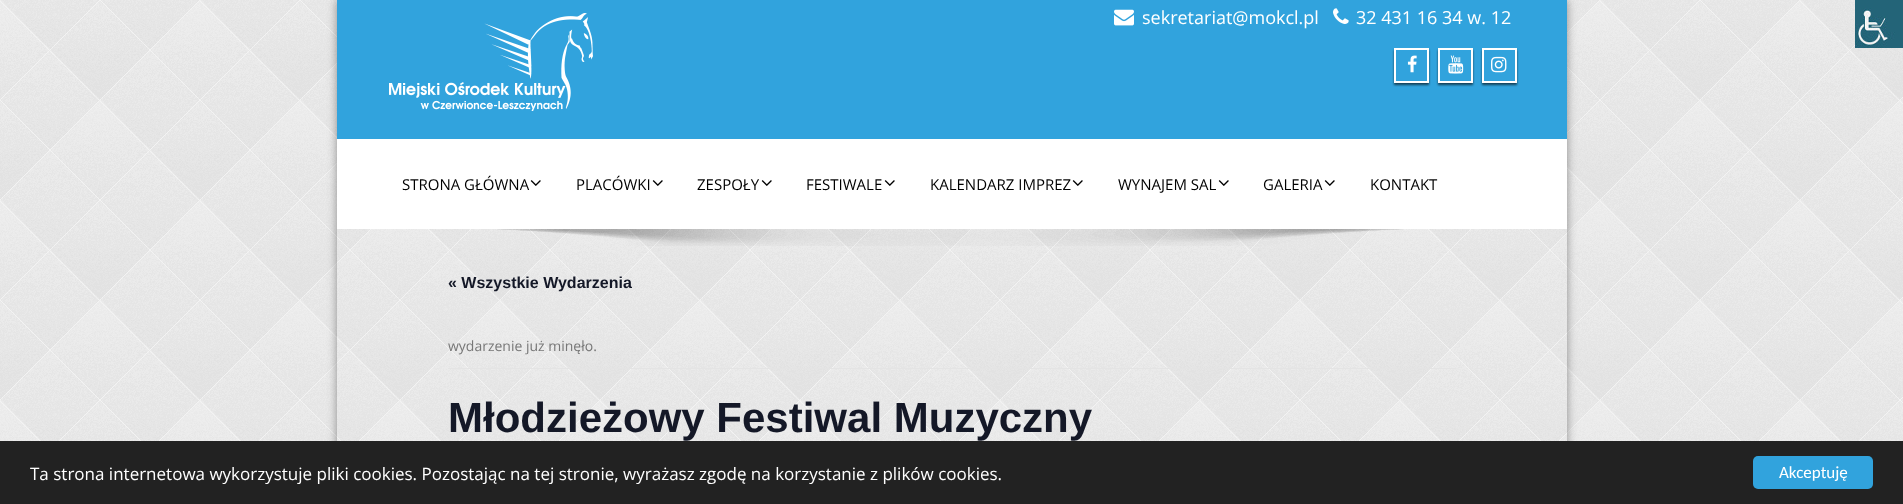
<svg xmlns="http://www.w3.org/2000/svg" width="1903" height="504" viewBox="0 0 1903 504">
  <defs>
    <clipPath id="clip1"><path d="M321 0H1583V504H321ZM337 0H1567V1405H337Z" clip-rule="evenodd"/></clipPath>
    <clipPath id="clip2"><path d="M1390 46H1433V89H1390ZM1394 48H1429V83H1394Z" clip-rule="evenodd"/></clipPath>
    <clipPath id="clip3"><path d="M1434 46H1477V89H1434ZM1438 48H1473V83H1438Z" clip-rule="evenodd"/></clipPath>
    <clipPath id="clip4"><path d="M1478 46H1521V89H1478ZM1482 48H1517V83H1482Z" clip-rule="evenodd"/></clipPath>
  </defs>
  <rect width="100%" height="100%" fill="rgb(255,255,255)"/>
  <image x="0" y="0" width="1903" height="441" href="pic1.png"/>
  <g clip-path="url(#clip1)">
    <rect x="337" y="0" width="1230" height="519" fill="rgba(48,48,48,0.5)" filter="blur(5px)"/>
  </g>
  <rect x="337" y="0" width="1230" height="139" fill="rgb(49,163,221)"/>
  <image x="389" y="13" width="204" height="98" href="pic2.png"/>
  <image x="1114" y="9" width="20" height="17" href="pic3.png"/>
  <text x="1142" y="24" font-family="Open Sans" font-size="18" fill="rgb(255,255,255)">sekretariat@mokcl.pl</text>
  <image x="1333" y="8" width="16" height="16" href="pic4.png"/>
  <text x="1356" y="24" font-family="Open Sans" font-size="18" fill="rgb(255,255,255)">32 431 16 34 w. 12</text>
  <g clip-path="url(#clip2)">
    <rect x="1394" y="50" width="35" height="35" fill="rgba(0,0,0,0.6)" filter="blur(1px)"/>
  </g>
  <rect x="1395" y="49" width="33" height="33" fill="none" stroke="rgb(255,255,255)" stroke-width="2"/>
  <image x="1407" y="55" width="10" height="18" href="pic5.png"/>
  <g clip-path="url(#clip3)">
    <rect x="1438" y="50" width="35" height="35" fill="rgba(0,0,0,0.6)" filter="blur(1px)"/>
  </g>
  <rect x="1439" y="49" width="33" height="33" fill="none" stroke="rgb(255,255,255)" stroke-width="2"/>
  <image x="1448" y="55" width="16" height="19" href="pic6.png"/>
  <g clip-path="url(#clip4)">
    <rect x="1482" y="50" width="35" height="35" fill="rgba(0,0,0,0.6)" filter="blur(1px)"/>
  </g>
  <rect x="1483" y="49" width="33" height="33" fill="none" stroke="rgb(255,255,255)" stroke-width="2"/>
  <image x="1491" y="56" width="16" height="17" href="pic7.png"/>
  <image x="1855" y="0" width="48" height="48" href="pic8.png"/>
  <rect x="337" y="139" width="1230" height="90" fill="rgb(255,255,255)"/>
  <text x="402" y="190" font-family="Open Sans" font-size="15" fill="rgb(0,0,0)">STRONA GŁÓWNA</text>
  <image x="530" y="180" width="11" height="6" href="pic9.png"/>
  <text x="576" y="190" font-family="Open Sans" font-size="15" fill="rgb(0,0,0)">PLACÓWKI</text>
  <image x="652" y="180" width="11" height="6" href="pic9.png"/>
  <text x="697" y="190" font-family="Open Sans" font-size="15" fill="rgb(0,0,0)">ZESPOŁY</text>
  <image x="761" y="180" width="11" height="6" href="pic9.png"/>
  <text x="806" y="190" font-family="Open Sans" font-size="15" fill="rgb(0,0,0)">FESTIWALE</text>
  <image x="884" y="180" width="11" height="6" href="pic9.png"/>
  <text x="930" y="190" font-family="Open Sans" font-size="15" fill="rgb(0,0,0)">KALENDARZ IMPREZ</text>
  <image x="1072" y="180" width="11" height="6" href="pic9.png"/>
  <text x="1118" y="190" font-family="Open Sans" font-size="15" fill="rgb(0,0,0)">WYNAJEM SAL</text>
  <image x="1218" y="180" width="11" height="6" href="pic9.png"/>
  <text x="1263" y="190" font-family="Open Sans" font-size="15" fill="rgb(0,0,0)">GALERIA</text>
  <image x="1324" y="180" width="11" height="6" href="pic9.png"/>
  <text x="1370" y="190" font-family="Open Sans" font-size="15" fill="rgb(0,0,0)">KONTAKT</text>
  <image x="497" y="229" width="907" height="17" href="pic10.png"/>
  <text x="448" y="288" font-family="Liberation Sans" font-size="16" font-weight="bold" fill="rgb(20,24,39)">« Wszystkie Wydarzenia</text>
  <rect x="448" y="368" width="1008" height="1" fill="rgb(228,228,228)"/>
  <text x="448" y="351" font-family="Open Sans" font-size="14" fill="rgb(119,119,119)">wydarzenie już minęło.</text>
  <text x="448" y="432" font-family="Liberation Sans" font-size="42" font-weight="bold" fill="rgb(20,24,39)">Młodzieżowy Festiwal Muzyczny</text>
  <rect x="0" y="441" width="1903" height="63" fill="rgb(34,34,34)"/>
  <text x="30" y="480" font-family="Open Sans" font-size="17" fill="rgb(255,255,255)">Ta strona internetowa wykorzystuje pliki cookies. Pozostając na tej stronie, wyrażasz zgodę na korzystanie z plików cookies.</text>
  <rect x="1753" y="456" width="120" height="33" rx="5" fill="rgb(49,163,221)"/>
  <text x="1779" y="478" font-family="Carlito" font-size="17" fill="rgb(255,255,255)">Akceptuję</text>
</svg>
